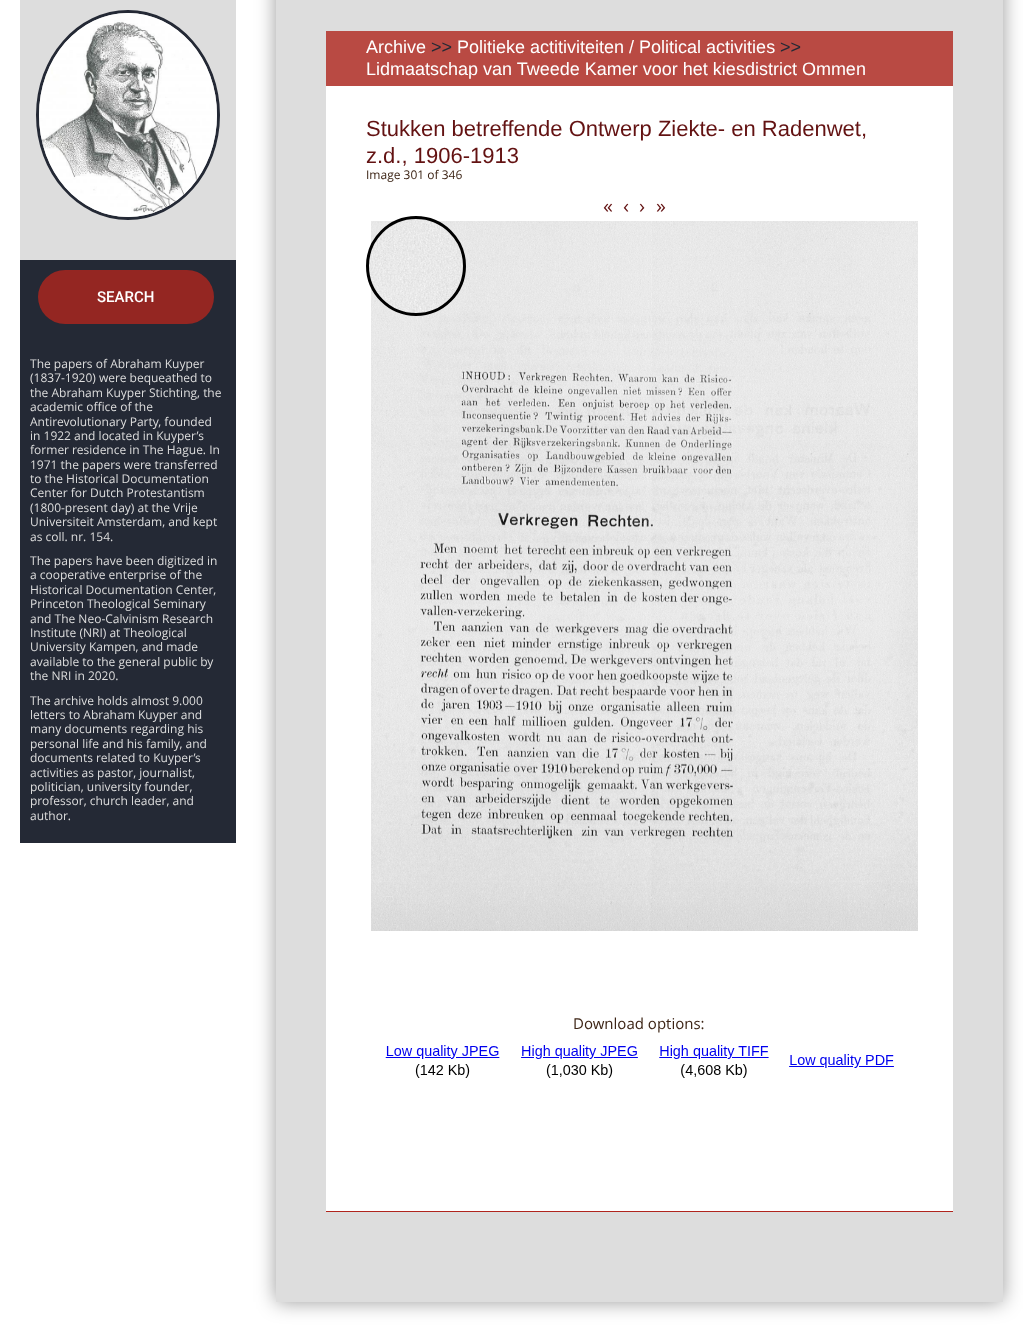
<svg xmlns="http://www.w3.org/2000/svg" width="1023" height="1331" viewBox="0 0 1023 1331">
  <rect width="100%" height="100%" fill="rgb(255,255,255)"/>
  <rect x="20" y="0" width="216" height="260" fill="rgb(221,221,221)"/>
  <path d="M128 11.5C178 11.5 218.5 58 218.5 115C218.5 172 178 218.5 128 218.5C78 218.5 37.5 172 37.5 115C37.5 58 78 11.5 128 11.5Z" fill="none" stroke="rgb(36,41,53)" stroke-width="3"/>
  <image x="39" y="13" width="178" height="204" href="pic1.png"/>
  <rect x="20" y="260" width="216" height="583" fill="rgb(36,41,53)"/>
  <rect x="38" y="270" width="176" height="54" rx="27" fill="rgb(148,38,34)"/>
  <text x="97" y="302" font-family="Roboto" font-size="15" font-weight="500" fill="rgb(255,255,255)">SEARCH</text>
  <g font-family="Open Sans" font-size="12" fill="rgb(221,221,221)">
    <text>
      <tspan x="30" y="368">The papers of Abraham Kuyper</tspan>
      <tspan x="30" y="382">(1837-1920) were bequeathed to</tspan>
      <tspan x="30" y="397">the Abraham Kuyper Stichting, the</tspan>
      <tspan x="30" y="411">academic office of the</tspan>
      <tspan x="30" y="426">Antirevolutionary Party, founded</tspan>
      <tspan x="30" y="440">in 1922 and located in Kuyper’s</tspan>
      <tspan x="30" y="454">former residence in The Hague. In</tspan>
      <tspan x="30" y="469">1971 the papers were transferred</tspan>
      <tspan x="30" y="483">to the Historical Documentation</tspan>
      <tspan x="30" y="497">Center for Dutch Protestantism</tspan>
      <tspan x="30" y="512">(1800-present day) at the Vrije</tspan>
      <tspan x="30" y="526">Universiteit Amsterdam, and kept</tspan>
      <tspan x="30" y="541">as coll. nr. 154.</tspan>
    </text>
    <text>
      <tspan x="30" y="565">The papers have been digitized in</tspan>
      <tspan x="30" y="579">a cooperative enterprise of the</tspan>
      <tspan x="30" y="594">Historical Documentation Center,</tspan>
      <tspan x="30" y="608">Princeton Theological Seminary</tspan>
      <tspan x="30" y="623">and The Neo-Calvinism Research</tspan>
      <tspan x="30" y="637">Institute (NRI) at Theological</tspan>
      <tspan x="30" y="651">University Kampen, and made</tspan>
      <tspan x="30" y="666">available to the general public by</tspan>
      <tspan x="30" y="680">the NRI in 2020.</tspan>
    </text>
    <text>
      <tspan x="30" y="705">The archive holds almost 9.000</tspan>
      <tspan x="30" y="719">letters to Abraham Kuyper and</tspan>
      <tspan x="30" y="733">many documents regarding his</tspan>
      <tspan x="30" y="748">personal life and his family, and</tspan>
      <tspan x="30" y="762">documents related to Kuyper’s</tspan>
      <tspan x="30" y="777">activities as pastor, journalist,</tspan>
      <tspan x="30" y="791">politician, university founder,</tspan>
      <tspan x="30" y="805">professor, church leader, and</tspan>
      <tspan x="30" y="820">author.</tspan>
    </text>
  </g>
  <rect x="276" y="-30" width="727" height="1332" fill="rgba(0,0,0,0.4)" filter="blur(10px)"/>
  <rect x="276" y="0" width="727" height="1302" fill="rgb(221,221,221)"/>
  <rect x="326" y="1211" width="627" height="1" fill="rgb(176,37,29)"/>
  <rect x="326" y="31" width="627" height="55" fill="rgb(185,74,67)"/>
  <text x="366" y="53" font-family="Liberation Sans" font-size="18" fill="rgb(255,255,255)">Archive</text>
  <text x="431" y="53" font-family="Liberation Sans" font-size="18" fill="rgb(36,41,53)">&gt;&gt;</text>
  <text x="457" y="53" font-family="Liberation Sans" font-size="18" fill="rgb(255,255,255)">Politieke actitiviteiten / Political activities</text>
  <text x="780" y="53" font-family="Liberation Sans" font-size="18" fill="rgb(36,41,53)">&gt;&gt;</text>
  <text x="366" y="75" font-family="Liberation Sans" font-size="18" fill="rgb(255,255,255)">Lidmaatschap van Tweede Kamer voor het kiesdistrict Ommen</text>
  <rect x="326" y="86" width="627" height="1125" fill="rgb(255,255,255)"/>
  <g font-family="Liberation Sans" font-size="22" fill="rgb(99,18,18)">
    <text>
      <tspan x="366" y="136">Stukken betreffende Ontwerp Ziekte- en Radenwet,</tspan>
      <tspan x="366" y="163">z.d., 1906-1913</tspan>
    </text>
  </g>
  <text x="366" y="179" font-family="Open Sans" font-size="12" fill="rgb(60,36,21)">Image 301 of 346</text>
  <g font-family="Open Sans" font-size="20" fill="rgb(99,18,18)">
    <text x="603" y="213">«</text>
    <text x="623" y="213">‹</text>
    <text x="639" y="213">›</text>
    <text x="656" y="213">»</text>
  </g>
  <image x="371" y="221" width="547" height="710" href="pic3.png"/>
  <image x="369" y="219" width="97" height="97" href="pic2.png"/>
  <circle cx="416" cy="266" r="48.5" fill="none" stroke="rgb(0,0,0)" stroke-width="3"/>
  <text x="573" y="1029" font-family="Open Sans" font-size="15" fill="rgb(60,36,21)">Download options:</text>
  <image x="385" y="1045" width="509" height="33" href="pic4.png"/>
</svg>
